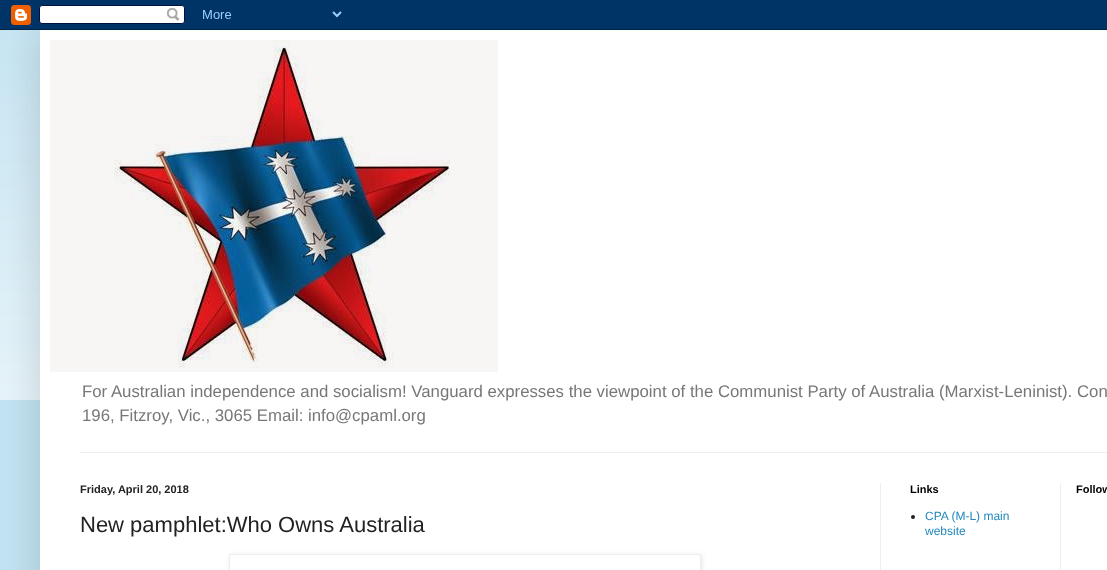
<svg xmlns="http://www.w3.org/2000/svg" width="1107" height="570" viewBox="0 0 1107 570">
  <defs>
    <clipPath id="clip1"><path d="M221 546H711V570H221ZM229 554H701V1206H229Z" clip-rule="evenodd"/></clipPath>
  </defs>
  <rect width="100%" height="100%" fill="rgb(194,227,242)"/>
  <image x="0" y="30" width="40" height="370" href="pic2.png"/>
  <rect x="40" y="30" width="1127" height="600" fill="rgba(0,0,0,0.15)" filter="blur(20px)"/>
  <image x="0" y="0" width="1107" height="30" href="pic1.png"/>
  <rect x="40" y="30" width="1067" height="540" fill="rgb(255,255,255)"/>
  <image x="50" y="40" width="448" height="332" href="pic3.png"/>
  <g font-family="Liberation Sans" font-size="16.8" fill="rgb(119,119,119)">
    <text>
      <tspan x="82" y="397">For Australian independence and socialism! Vanguard expresses the viewpoint of the Communist Party of Australia (Marxist-Leninist). Con</tspan>
      <tspan x="82" y="421">196, Fitzroy, Vic., 3065 Email: info@cpaml.org</tspan>
    </text>
  </g>
  <rect x="80" y="452" width="1027" height="1" fill="rgb(238,238,238)"/>
  <rect x="880" y="483" width="1" height="87" fill="rgb(238,238,238)"/>
  <text x="80" y="493" font-family="Liberation Sans" font-size="11" font-weight="bold" fill="rgb(34,34,34)">Friday, April 20, 2018</text>
  <text x="80" y="532" font-family="Liberation Sans" font-size="22" fill="rgb(34,34,34)">New pamphlet:Who Owns Australia</text>
  <g clip-path="url(#clip1)">
    <rect x="230" y="555" width="472" height="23" fill="rgba(0,0,0,0.1)" filter="blur(2.5px)"/>
  </g>
  <rect x="229.5" y="554.5" width="471" height="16" fill="none" stroke="rgb(238,238,238)"/>
  <text x="910" y="493" font-family="Liberation Sans" font-size="11" font-weight="bold" fill="rgb(0,0,0)">Links</text>
  <circle cx="913" cy="517" r="2" fill="rgb(34,34,34)"/>
  <g font-family="Liberation Sans" font-size="12" fill="rgb(34,136,187)">
    <text>
      <tspan x="925" y="520">CPA (M-L) main</tspan>
      <tspan x="925" y="535">website</tspan>
    </text>
  </g>
  <rect x="1060" y="483" width="1" height="87" fill="rgb(238,238,238)"/>
  <text x="1076" y="493" font-family="Liberation Sans" font-size="11" font-weight="bold" fill="rgb(0,0,0)">Follow</text>
</svg>
